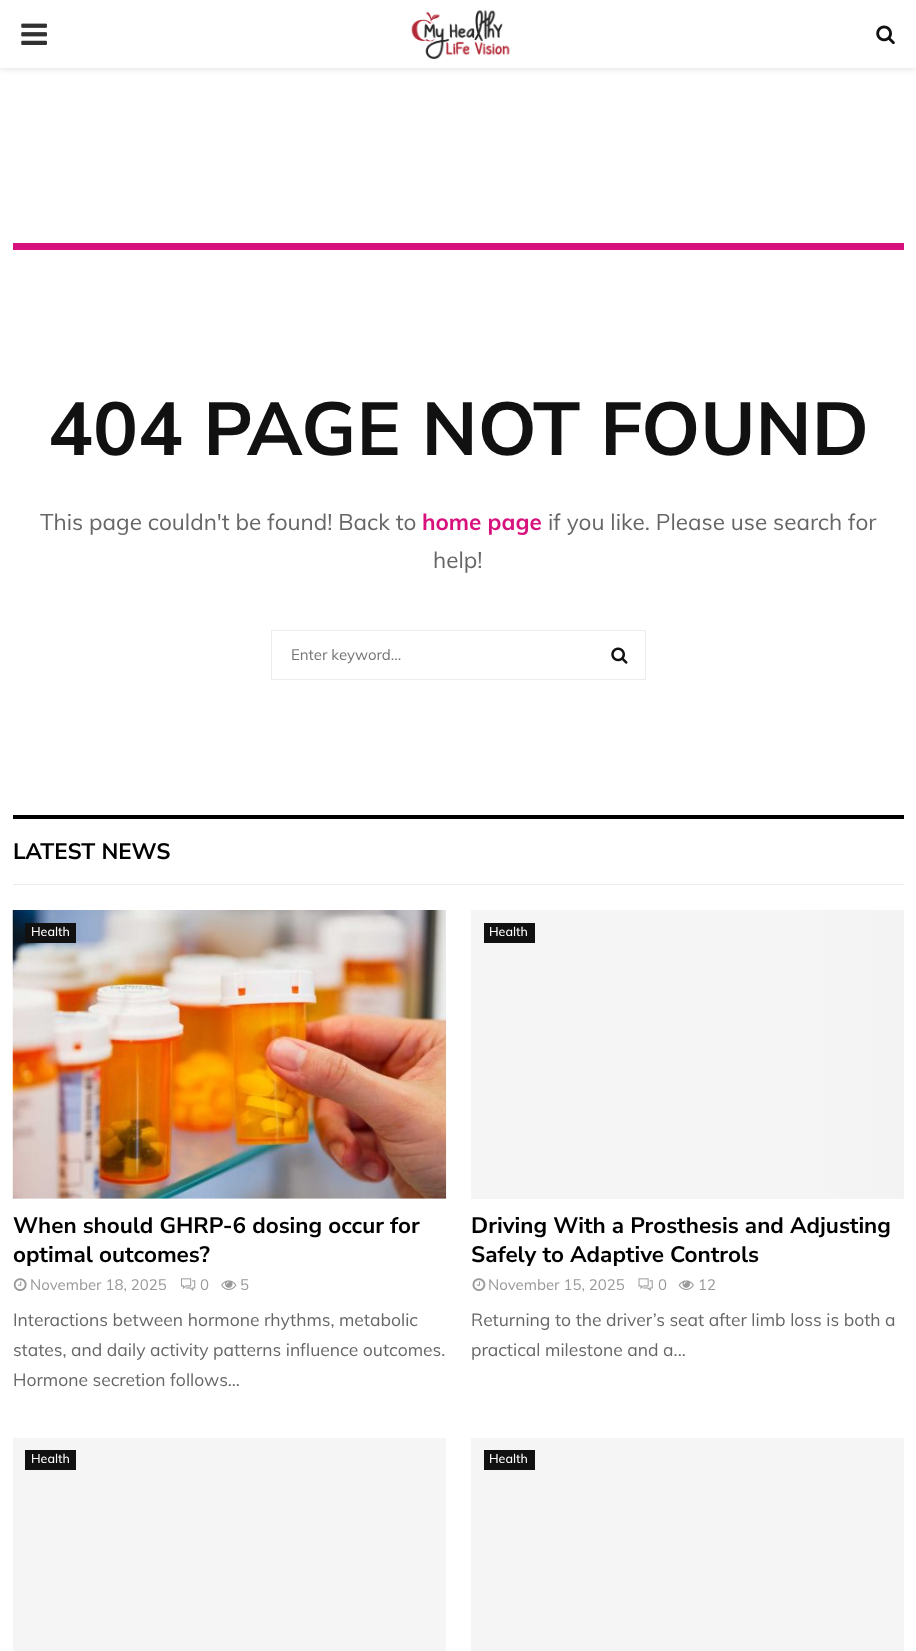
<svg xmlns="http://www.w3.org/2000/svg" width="916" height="1651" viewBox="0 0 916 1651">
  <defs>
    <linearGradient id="g1" gradientUnits="userSpaceOnUse" x1="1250" y1="1054" x2="125" y2="1054"><stop offset="0" stop-color="rgb(245,245,245)"/><stop offset="0.15" stop-color="rgb(239,239,239)"/><stop offset="0.4" stop-color="rgb(245,245,245)"/><stop offset="1" stop-color="rgb(245,245,245)"/></linearGradient>
  </defs>
  <rect width="100%" height="100%" fill="rgb(255,255,255)"/>
  <rect x="0" y="1" width="916" height="68" fill="rgba(190,190,190,0.46)" filter="blur(3px)"/>
  <rect x="0" y="0" width="916" height="68" fill="rgb(255,255,255)"/>
  <image x="21" y="23" width="26" height="22" href="pic1.png"/>
  <image x="411" y="10" width="99" height="49" href="pic2.png"/>
  <image x="876" y="25" width="19" height="20" href="pic3.png"/>
  <rect x="13" y="243" width="891" height="7" fill="rgb(216,18,125)"/>
  <text x="48" y="455" font-family="Nunito Sans" font-size="75" font-weight="bold" fill="rgb(17,17,17)">404 PAGE NOT FOUND</text>
  <text x="40" y="530" font-family="Muli" font-size="22.5" fill="rgb(102,102,102)">This page couldn't be found! Back to</text>
  <text x="422" y="530" font-family="Muli" font-size="22.5" font-weight="bold" fill="rgb(216,18,125)">home page</text>
  <g font-family="Muli" font-size="22.5" fill="rgb(102,102,102)">
    <text x="548" y="530">if you like. Please use search for</text>
    <text x="433" y="568">help!</text>
  </g>
  <rect x="271.5" y="630.5" width="374" height="49" fill="none" stroke="rgb(236,236,236)"/>
  <text x="291" y="660" font-family="Muli" font-size="15" fill="rgb(117,117,117)">Enter keyword...</text>
  <image x="611" y="647" width="17" height="17" href="pic4.png"/>
  <rect x="13" y="884" width="891" height="1" fill="rgb(236,236,236)"/>
  <rect x="13" y="815" width="891" height="4" fill="rgb(0,0,0)"/>
  <text x="13" y="859" font-family="Nunito Sans" font-size="22.5" font-weight="bold" fill="rgb(0,0,0)">LATEST NEWS</text>
  <rect x="13" y="1198" width="433" height="1" fill="rgb(245,245,245)"/>
  <image x="12" y="910" width="435" height="289" href="pic5.png"/>
  <rect x="25" y="923" width="51" height="20" fill="rgb(17,17,17)"/>
  <text x="31" y="936" font-family="Muli" font-size="12.5" font-weight="500" fill="rgb(255,255,255)">Health</text>
  <g font-family="Nunito Sans" font-size="22.5" font-weight="bold" fill="rgb(0,0,0)">
    <text>
      <tspan x="13" y="1233">When should GHRP-6 dosing occur for</tspan>
      <tspan x="13" y="1262">optimal outcomes?</tspan>
    </text>
  </g>
  <image x="13" y="1278" width="14" height="13" href="pic6.png"/>
  <text x="30" y="1290" font-family="Muli" font-size="15" fill="rgb(153,153,153)">November 18, 2025</text>
  <image x="181" y="1278" width="15" height="13" href="pic7.png"/>
  <text x="200" y="1290" font-family="Muli" font-size="15" fill="rgb(153,153,153)">0</text>
  <image x="221" y="1280" width="16" height="10" href="pic8.png"/>
  <text x="240" y="1290" font-family="Muli" font-size="15" fill="rgb(153,153,153)">5</text>
  <g font-family="Muli" font-size="17.5" fill="rgb(102,102,102)">
    <text>
      <tspan x="13" y="1326">Interactions between hormone rhythms, metabolic</tspan>
      <tspan x="13" y="1356">states, and daily activity patterns influence outcomes.</tspan>
      <tspan x="13" y="1386">Hormone secretion follows...</tspan>
    </text>
  </g>
  <rect x="471" y="910" width="433" height="289" fill="url(#g1)"/>
  <rect x="484" y="923" width="51" height="20" fill="rgb(17,17,17)"/>
  <text x="489" y="936" font-family="Muli" font-size="12.5" font-weight="500" fill="rgb(255,255,255)">Health</text>
  <g font-family="Nunito Sans" font-size="22.5" font-weight="bold" fill="rgb(0,0,0)">
    <text>
      <tspan x="471" y="1233">Driving With a Prosthesis and Adjusting</tspan>
      <tspan x="471" y="1262">Safely to Adaptive Controls</tspan>
    </text>
  </g>
  <image x="472" y="1278" width="14" height="13" href="pic9.png"/>
  <text x="488" y="1290" font-family="Muli" font-size="15" fill="rgb(153,153,153)">November 15, 2025</text>
  <image x="638" y="1278" width="15" height="13" href="pic10.png"/>
  <text x="658" y="1290" font-family="Muli" font-size="15" fill="rgb(153,153,153)">0</text>
  <image x="678" y="1280" width="16" height="10" href="pic11.png"/>
  <text x="698" y="1290" font-family="Muli" font-size="15" fill="rgb(153,153,153)">12</text>
  <g font-family="Muli" font-size="17.5" fill="rgb(102,102,102)">
    <text>
      <tspan x="471" y="1326">Returning to the driver’s seat after limb loss is both a</tspan>
      <tspan x="471" y="1356">practical milestone and a...</tspan>
    </text>
  </g>
  <rect x="13" y="1438" width="433" height="213" fill="rgb(245,245,245)"/>
  <rect x="25" y="1450" width="51" height="20" fill="rgb(17,17,17)"/>
  <text x="31" y="1463" font-family="Muli" font-size="12.5" font-weight="500" fill="rgb(255,255,255)">Health</text>
  <rect x="471" y="1438" width="433" height="213" fill="rgb(245,245,245)"/>
  <rect x="484" y="1450" width="51" height="20" fill="rgb(17,17,17)"/>
  <text x="489" y="1463" font-family="Muli" font-size="12.5" font-weight="500" fill="rgb(255,255,255)">Health</text>
</svg>
